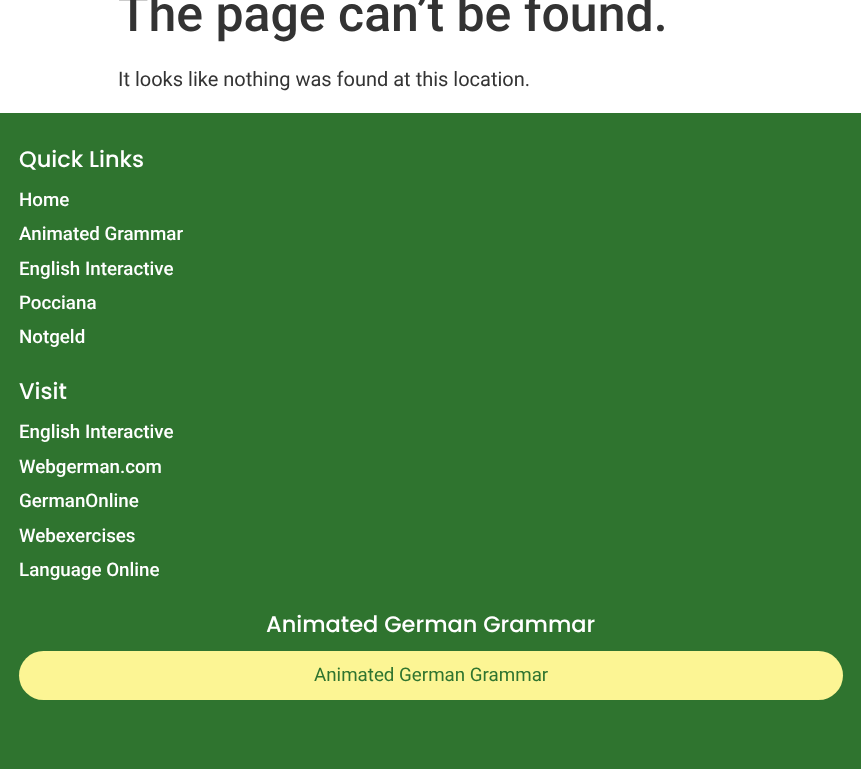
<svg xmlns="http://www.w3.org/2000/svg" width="861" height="769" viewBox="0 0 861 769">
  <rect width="100%" height="100%" fill="rgb(255,255,255)"/>
  <text x="118" y="31" font-family="Roboto" font-size="50" font-weight="500" fill="rgb(51,51,51)">The page can’t be found.</text>
  <text x="118" y="86" font-family="Roboto" font-size="20" fill="rgb(51,51,51)">It looks like nothing was found at this location.</text>
  <rect x="0" y="113" width="861" height="656" fill="rgb(47,116,47)"/>
  <text x="19" y="167" font-family="Poppins" font-size="22.5" font-weight="500" fill="rgb(255,255,255)">Quick Links</text>
  <g font-family="Roboto" font-size="18.75" font-weight="500" fill="rgb(255,255,255)">
    <text>
      <tspan x="19" y="206">Home</tspan>
      <tspan x="19" y="240">Animated Grammar</tspan>
      <tspan x="19" y="275">English Interactive</tspan>
      <tspan x="19" y="309">Pocciana</tspan>
      <tspan x="19" y="343">Notgeld</tspan>
    </text>
  </g>
  <text x="19" y="399" font-family="Poppins" font-size="22.5" font-weight="500" fill="rgb(255,255,255)">Visit</text>
  <g font-family="Roboto" font-size="18.75" font-weight="500" fill="rgb(255,255,255)">
    <text>
      <tspan x="19" y="438">English Interactive</tspan>
      <tspan x="19" y="473">Webgerman.com</tspan>
      <tspan x="19" y="507">GermanOnline</tspan>
      <tspan x="19" y="542">Webexercises</tspan>
      <tspan x="19" y="576">Language Online</tspan>
    </text>
  </g>
  <text x="266" y="632" font-family="Poppins" font-size="22.5" font-weight="500" fill="rgb(255,255,255)">Animated German Grammar</text>
  <rect x="19" y="651" width="824" height="49" rx="24.5" fill="rgb(252,245,148)"/>
  <text x="314" y="681" font-family="Roboto" font-size="18.75" fill="rgb(47,116,47)">Animated German Grammar</text>
</svg>
